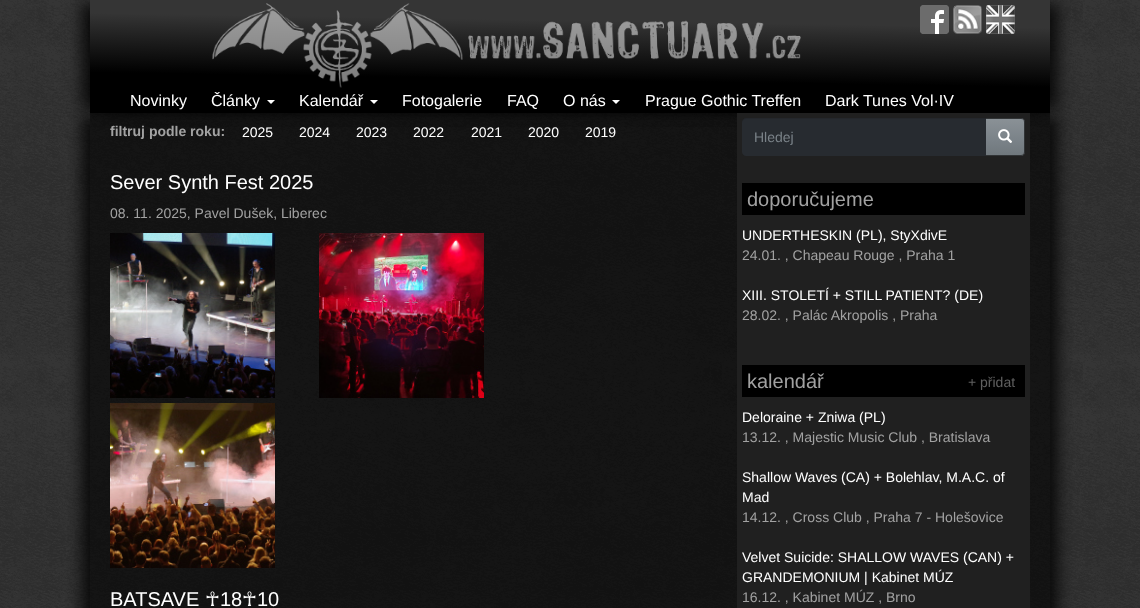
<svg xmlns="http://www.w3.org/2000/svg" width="1140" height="608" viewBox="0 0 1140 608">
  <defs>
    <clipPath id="clip1"><rect x="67" y="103" width="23" height="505"/></clipPath>
    <clipPath id="clip2"><rect x="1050" y="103" width="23" height="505"/></clipPath>
    <linearGradient id="g1" gradientUnits="userSpaceOnUse" x1="571" y1="-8" x2="569" y2="121"><stop offset="0.22" stop-color="rgb(53,53,53)"/><stop offset="0.68" stop-color="rgb(0,0,0)"/></linearGradient>
    <linearGradient id="g2" gradientUnits="userSpaceOnUse" x1="1005" y1="119" x2="1005" y2="155"><stop offset="0" stop-color="rgb(138,145,150)"/><stop offset="0.6" stop-color="rgb(122,130,136)"/><stop offset="1" stop-color="rgb(112,120,125)"/></linearGradient>
  </defs>
  <rect width="100%" height="100%" fill="rgb(255,255,255)"/>
  <image x="0" y="0" width="1140" height="608" href="pic1.png"/>
  <g clip-path="url(#clip1)">
    <rect x="82" y="117" width="952" height="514" fill="rgba(0,0,0,0.8)" filter="blur(7.5px)"/>
  </g>
  <g clip-path="url(#clip2)">
    <rect x="106" y="117" width="952" height="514" fill="rgba(0,0,0,0.8)" filter="blur(7.5px)"/>
  </g>
  <rect x="90" y="113" width="960" height="495" fill="rgba(0,0,0,0.6)"/>
  <rect x="82" y="4" width="952" height="105" fill="rgba(0,0,0,0.8)" filter="blur(7.5px)"/>
  <rect x="106" y="4" width="952" height="105" fill="rgba(0,0,0,0.8)" filter="blur(7.5px)"/>
  <rect x="90" y="0" width="960" height="113" fill="url(#g1)"/>
  <image x="212" y="3" width="589" height="85" href="pic2.png"/>
  <image x="920" y="5" width="29" height="29" href="pic3.png"/>
  <image x="953" y="5" width="29" height="29" href="pic4.png"/>
  <image x="986" y="5" width="29" height="29" href="pic5.png"/>
  <g font-family="Liberation Sans" font-size="16" fill="rgb(255,255,255)">
    <text x="130" y="106">Novinky</text>
    <text x="211" y="106">Články</text>
  </g>
  <path d="M267 100H275L271 104Z" fill="rgb(255,255,255)"/>
  <text x="299" y="106" font-family="Liberation Sans" font-size="16" fill="rgb(255,255,255)">Kalendář</text>
  <path d="M370 100H378L374 104Z" fill="rgb(255,255,255)"/>
  <g font-family="Liberation Sans" font-size="16" fill="rgb(255,255,255)">
    <text x="402" y="106">Fotogalerie</text>
    <text x="507" y="106">FAQ</text>
    <text x="563" y="106">O nás</text>
  </g>
  <path d="M612 100H620L616 104Z" fill="rgb(255,255,255)"/>
  <g font-family="Liberation Sans" font-size="16" fill="rgb(255,255,255)">
    <text x="645" y="106">Prague Gothic Treffen</text>
    <text x="825" y="106">Dark Tunes Vol·IV</text>
  </g>
  <text x="110" y="136" font-family="Liberation Sans" font-size="14" font-weight="bold" fill="rgb(162,162,162)">filtruj podle roku:</text>
  <g font-family="Liberation Sans" font-size="14" fill="rgb(255,255,255)">
    <text x="242" y="137">2025</text>
    <text x="299" y="137">2024</text>
    <text x="356" y="137">2023</text>
    <text x="413" y="137">2022</text>
    <text x="471" y="137">2021</text>
    <text x="528" y="137">2020</text>
    <text x="585" y="137">2019</text>
  </g>
  <text x="110" y="189" font-family="Liberation Sans" font-size="20" fill="rgb(255,255,255)">Sever Synth Fest 2025</text>
  <text x="110" y="218" font-family="Liberation Sans" font-size="14" fill="rgb(162,162,162)">08. 11. 2025, Pavel Dušek, Liberec</text>
  <image x="110" y="233" width="165" height="165" href="pic6.png"/>
  <image x="319" y="233" width="165" height="165" href="pic7.png"/>
  <image x="110" y="403" width="165" height="165" href="pic8.png"/>
  <text x="110" y="606" font-family="Liberation Sans" font-size="20" fill="rgb(255,255,255)">BATSAVE</text>
  <text x="205" y="606" font-family="DejaVu Sans" font-size="20" fill="rgb(255,255,255)">☥</text>
  <text x="220" y="606" font-family="Liberation Sans" font-size="20" fill="rgb(255,255,255)">18</text>
  <text x="242" y="606" font-family="DejaVu Sans" font-size="20" fill="rgb(255,255,255)">☥</text>
  <text x="257" y="606" font-family="Liberation Sans" font-size="20" fill="rgb(255,255,255)">10</text>
  <rect x="737" y="113" width="293" height="495" fill="rgb(32,32,32)"/>
  <path d="M985 118H1021C1023 118 1025 120 1025 122V152C1025 154 1023 156 1021 156H985Z" fill="rgb(122,130,136)"/>
  <rect x="986" y="119" width="38" height="36" fill="url(#g2)"/>
  <path d="M985.5 118.5H1021C1023 118.5 1024.5 120 1024.5 122V152C1024.5 154 1023 155.5 1021 155.5H985.5Z" fill="none" stroke="rgba(0,0,0,0.6)"/>
  <path d="M746 118H986V156H746C744 156 742 154 742 152V122C742 120 744 118 746 118Z" fill="rgb(39,43,48)"/>
  <path d="M746 119H986V118H746C744 118 742 120 742 122V123C742 121 744 119 746 119Z" fill="rgba(0,0,0,0.07)"/>
  <text x="754" y="142" font-family="Liberation Sans" font-size="14" fill="rgb(122,130,136)">Hledej</text>
  <image x="998" y="129" width="14" height="14" href="pic9.png"/>
  <rect x="742" y="183" width="283" height="32" fill="rgb(0,0,0)"/>
  <text x="747" y="206" font-family="Liberation Sans" font-size="20" fill="rgb(162,162,162)">doporučujeme</text>
  <text x="742" y="240" font-family="Liberation Sans" font-size="14" fill="rgb(255,255,255)">UNDERTHESKIN (PL), StyXdivE</text>
  <text x="742" y="260" font-family="Liberation Sans" font-size="14" fill="rgb(162,162,162)">24.01. , Chapeau Rouge , Praha 1</text>
  <text x="742" y="300" font-family="Liberation Sans" font-size="14" fill="rgb(255,255,255)">XIII. STOLETÍ + STILL PATIENT? (DE)</text>
  <text x="742" y="320" font-family="Liberation Sans" font-size="14" fill="rgb(162,162,162)">28.02. , Palác Akropolis , Praha</text>
  <rect x="742" y="365" width="283" height="32" fill="rgb(0,0,0)"/>
  <text x="747" y="388" font-family="Liberation Sans" font-size="20" fill="rgb(162,162,162)">kalendář</text>
  <text x="968" y="387" font-family="Liberation Sans" font-size="14" fill="rgb(96,96,96)">+ přidat</text>
  <text x="742" y="422" font-family="Liberation Sans" font-size="14" fill="rgb(255,255,255)">Deloraine + Zniwa (PL)</text>
  <text x="742" y="442" font-family="Liberation Sans" font-size="14" fill="rgb(162,162,162)">13.12. , Majestic Music Club , Bratislava</text>
  <g font-family="Liberation Sans" font-size="14" fill="rgb(255,255,255)">
    <text>
      <tspan x="742" y="482">Shallow Waves (CA) + Bolehlav, M.A.C. of</tspan>
      <tspan x="742" y="502">Mad</tspan>
    </text>
  </g>
  <text x="742" y="522" font-family="Liberation Sans" font-size="14" fill="rgb(162,162,162)">14.12. , Cross Club , Praha 7 - Holešovice</text>
  <g font-family="Liberation Sans" font-size="14" fill="rgb(255,255,255)">
    <text>
      <tspan x="742" y="562">Velvet Suicide: SHALLOW WAVES (CAN) +</tspan>
      <tspan x="742" y="582">GRANDEMONIUM | Kabinet MÚZ</tspan>
    </text>
  </g>
  <text x="742" y="602" font-family="Liberation Sans" font-size="14" fill="rgb(162,162,162)">16.12. , Kabinet MÚZ , Brno</text>
</svg>
